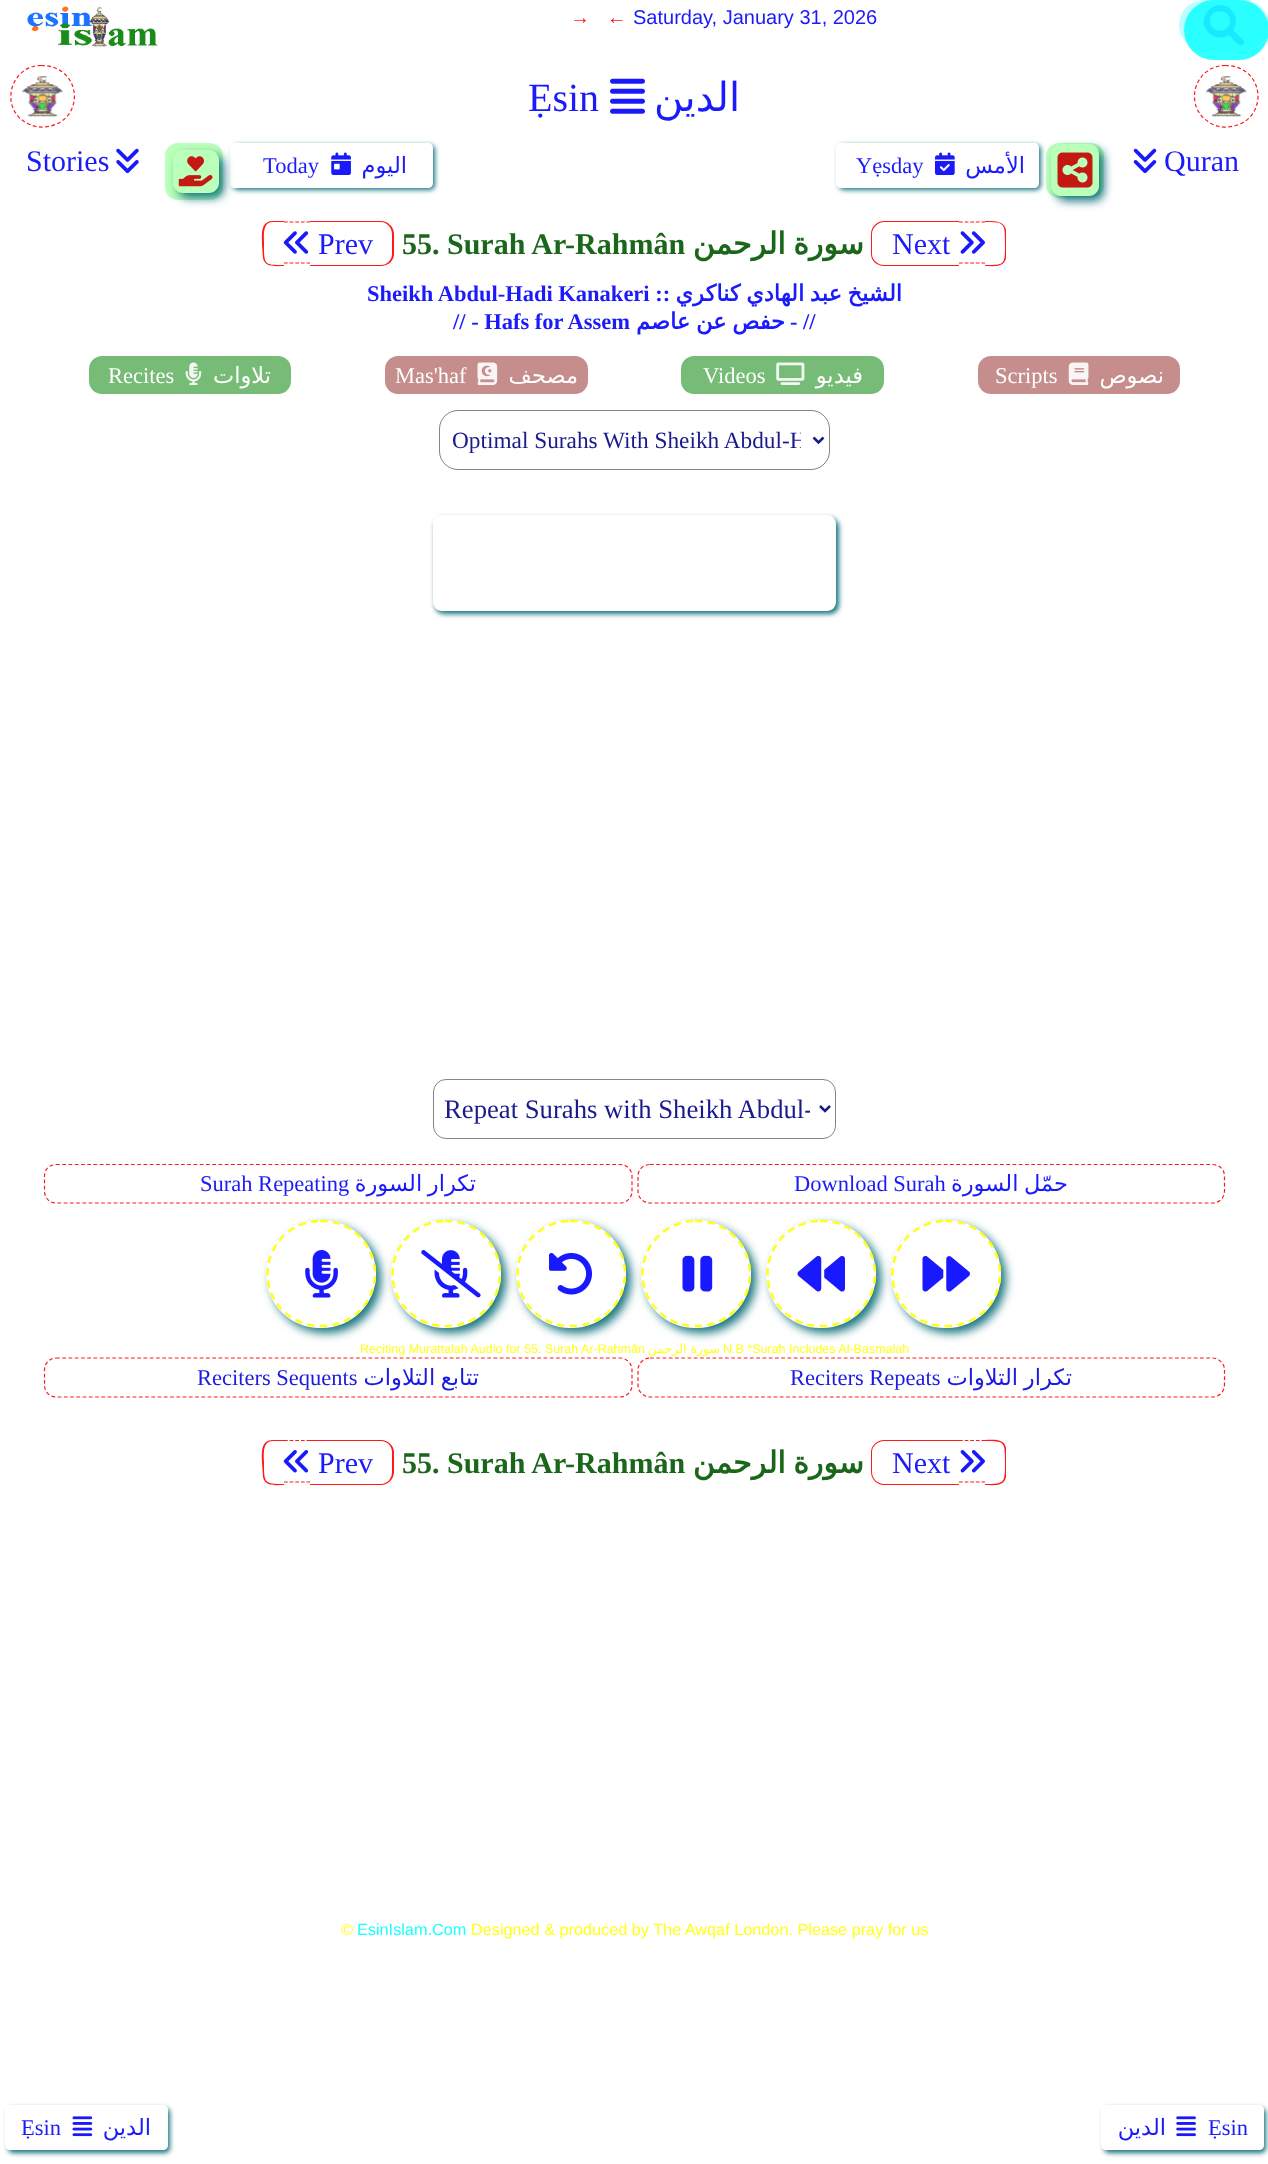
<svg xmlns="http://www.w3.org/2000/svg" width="1268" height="2164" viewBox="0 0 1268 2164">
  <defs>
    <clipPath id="clip1"><path d="M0 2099H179V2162H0ZM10 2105H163C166 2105 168 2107 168 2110V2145C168 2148 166 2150 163 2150H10C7 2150 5 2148 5 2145V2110C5 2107 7 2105 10 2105Z" clip-rule="evenodd"/></clipPath>
    <clipPath id="clip2"><path d="M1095 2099H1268V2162H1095ZM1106 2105H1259C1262 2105 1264 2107 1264 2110V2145C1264 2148 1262 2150 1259 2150H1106C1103 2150 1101 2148 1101 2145V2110C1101 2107 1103 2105 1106 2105Z" clip-rule="evenodd"/></clipPath>
    <clipPath id="clip3"><path d="M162 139H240V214H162ZM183 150H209C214.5 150 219 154.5 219 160V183C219 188.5 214.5 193 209 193H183C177.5 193 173 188.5 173 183V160C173 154.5 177.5 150 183 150Z" clip-rule="evenodd"/></clipPath>
    <clipPath id="clip4"><path d="M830 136H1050V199H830ZM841 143H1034C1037 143 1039 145 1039 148V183C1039 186 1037 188 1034 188H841C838 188 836 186 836 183V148C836 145 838 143 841 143Z" clip-rule="evenodd"/></clipPath>
    <clipPath id="clip5"><path d="M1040 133H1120V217H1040ZM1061 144H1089C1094.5 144 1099 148.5 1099 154V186C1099 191.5 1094.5 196 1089 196H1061C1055.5 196 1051 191.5 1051 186V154C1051 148.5 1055.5 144 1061 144Z" clip-rule="evenodd"/></clipPath>
    <clipPath id="clip6"><path d="M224 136H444V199H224ZM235 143H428C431 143 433 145 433 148V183C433 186 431 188 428 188H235C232 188 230 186 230 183V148C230 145 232 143 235 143Z" clip-rule="evenodd"/></clipPath>
    <clipPath id="clip7"><rect x="453" y="426" width="348" height="29"/></clipPath>
    <clipPath id="clip8"><path d="M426 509H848V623H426ZM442 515H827C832 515 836 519 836 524V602C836 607 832 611 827 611H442C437 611 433 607 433 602V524C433 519 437 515 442 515Z" clip-rule="evenodd"/></clipPath>
    <clipPath id="clip9"><rect x="444" y="1093" width="366" height="32"/></clipPath>
    <clipPath id="clip10"><path d="M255 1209H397V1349H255ZM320 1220H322C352 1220 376 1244 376 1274C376 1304 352 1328 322 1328H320C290 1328 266 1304 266 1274C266 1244 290 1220 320 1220Z" clip-rule="evenodd"/></clipPath>
    <clipPath id="clip11"><path d="M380 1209H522V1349H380ZM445 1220H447C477 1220 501 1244 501 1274C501 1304 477 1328 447 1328H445C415 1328 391 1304 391 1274C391 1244 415 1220 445 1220Z" clip-rule="evenodd"/></clipPath>
    <clipPath id="clip12"><path d="M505 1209H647V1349H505ZM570 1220H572C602 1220 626 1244 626 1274C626 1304 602 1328 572 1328H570C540 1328 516 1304 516 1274C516 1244 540 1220 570 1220Z" clip-rule="evenodd"/></clipPath>
    <clipPath id="clip13"><path d="M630 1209H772V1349H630ZM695 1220H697C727 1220 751 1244 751 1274C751 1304 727 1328 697 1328H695C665 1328 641 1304 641 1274C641 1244 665 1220 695 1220Z" clip-rule="evenodd"/></clipPath>
    <clipPath id="clip14"><path d="M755 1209H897V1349H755ZM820 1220H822C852 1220 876 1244 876 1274C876 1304 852 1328 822 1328H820C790 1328 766 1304 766 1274C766 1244 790 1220 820 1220Z" clip-rule="evenodd"/></clipPath>
    <clipPath id="clip15"><path d="M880 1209H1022V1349H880ZM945 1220H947C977 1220 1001 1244 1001 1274C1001 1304 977 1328 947 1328H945C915 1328 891 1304 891 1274C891 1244 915 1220 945 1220Z" clip-rule="evenodd"/></clipPath>
  </defs>
  <rect width="100%" height="100%" fill="rgb(255,255,255)"/>
  <rect x="1179" y="0" width="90" height="50" rx="25" fill="rgb(186,255,255)"/>
  <path d="M1243 40L1233 30C1244 15 1223-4 1209 10C1194 24 1213 45 1229 35L1238 44C1241 47 1246 43 1243 40ZM1210 21C1210 8 1230 8 1230 21C1230 34 1210 34 1210 21Z" fill="rgb(26,26,251)"/>
  <rect x="1184" y="0" width="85" height="60" rx="30" fill="rgba(26,255,255,0.9)"/>
  <image x="27" y="6" width="131" height="41" href="pic1.png"/>
  <text x="570" y="24" font-family="Liberation Sans" font-size="20" fill="rgb(255,26,26)" xml:space="preserve">→   ←</text>
  <text x="633" y="24" font-family="Liberation Sans" font-size="20" fill="rgb(26,26,251)">Saturday, January 31, 2026</text>
  <g clip-path="url(#clip1)">
    <rect x="8" y="2108" width="162" height="45" rx="5" fill="rgb(26,118,129)" filter="blur(2.5px)"/>
  </g>
  <text x="21" y="2135" font-family="Liberation Serif" font-size="22.5" fill="rgb(26,26,251)">Ẹsin</text>
  <image x="72" y="2116" width="21" height="21" href="pic2.png"/>
  <text x="151" y="2135" font-family="DejaVu Sans" font-size="22.5" direction="rtl" fill="rgb(26,26,251)">الدين</text>
  <g clip-path="url(#clip2)">
    <rect x="1104" y="2108" width="162" height="45" rx="5" fill="rgb(26,118,129)" filter="blur(2.5px)"/>
  </g>
  <text x="1166" y="2135" font-family="DejaVu Sans" font-size="22.5" direction="rtl" fill="rgb(26,26,251)">الدين</text>
  <image x="1176" y="2116" width="20" height="21" href="pic3.png"/>
  <text x="1208" y="2135" font-family="Liberation Serif" font-size="22.5" fill="rgb(26,26,251)">Ẹsin</text>
  <path d="M41 65.5C84 65.5 86 124 44 127C37 127.5 30 125.5 24 121.5C-.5 105 11.5 65.5 41 65.5Z" fill="none" stroke="rgb(255,26,26)" stroke-width="1.2" stroke-dasharray="3.75 2.5"/>
  <image x="22" y="76" width="41" height="41" href="pic4.png"/>
  <path d="M1225 65.5C1267.5 65.5 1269.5 124 1227.5 127C1220.5 127.5 1213.5 125.5 1208 121.5C1183 105 1195 65.5 1225 65.5Z" fill="none" stroke="rgb(255,26,26)" stroke-width="1.2" stroke-dasharray="3.75 2.5"/>
  <image x="1206" y="76" width="41" height="41" href="pic5.png"/>
  <text x="528" y="111" font-family="Liberation Serif" font-size="40" fill="rgb(26,26,251)">Ẹsin</text>
  <image x="610" y="78" width="35" height="36" href="pic6.png"/>
  <text x="740" y="111" font-family="DejaVu Sans" font-size="40" direction="rtl" fill="rgb(26,26,251)">الدين</text>
  <text x="26" y="171" font-family="Liberation Serif" font-size="30" fill="rgb(26,26,251)">Stories</text>
  <image x="116" y="148" width="23" height="26" href="pic7.png"/>
  <rect x="165" y="143" width="58" height="57" rx="13" fill="rgb(186,255,186)"/>
  <g clip-path="url(#clip3)">
    <rect x="178" y="155" width="46" height="43" rx="10" fill="rgb(26,118,129)" filter="blur(5px)"/>
  </g>
  <image x="178" y="156" width="35" height="31" href="pic8.png"/>
  <g clip-path="url(#clip4)">
    <rect x="839" y="145" width="202" height="45" rx="5" fill="rgb(26,118,129)" filter="blur(2.5px)"/>
  </g>
  <rect x="1046" y="143" width="58" height="55" rx="13" fill="rgba(26,255,26,0.3)"/>
  <g clip-path="url(#clip5)">
    <rect x="1056" y="149" width="48" height="52" rx="10" fill="rgb(26,118,129)" filter="blur(5px)"/>
  </g>
  <image x="1057" y="152" width="36" height="36" href="pic9.png"/>
  <image x="1133" y="148" width="24" height="26" href="pic10.png"/>
  <text x="1164" y="171" font-family="Liberation Serif" font-size="30" fill="rgb(26,26,251)">Quran</text>
  <g clip-path="url(#clip6)">
    <rect x="233" y="145" width="202" height="45" rx="5" fill="rgb(26,118,129)" filter="blur(2.5px)"/>
  </g>
  <text x="263" y="173" font-family="Liberation Serif" font-size="22.5" fill="rgb(26,26,251)">Today</text>
  <image x="331" y="152" width="20" height="23" href="pic11.png"/>
  <text x="407" y="173" font-family="DejaVu Sans" font-size="22.5" direction="rtl" fill="rgb(26,26,251)">اليوم</text>
  <text x="856" y="173" font-family="Liberation Serif" font-size="22.5" fill="rgb(26,26,251)">Yẹsday</text>
  <image x="935" y="152" width="20" height="23" href="pic12.png"/>
  <text x="1025" y="173" font-family="DejaVu Sans" font-size="22.5" direction="rtl" fill="rgb(26,26,251)">الأمس</text>
  <path d="M273 221H284V266C276 266 265 268 263 258L262 244C262 235 260 221 273 221ZM273 222H284V265C264 265 264 265 264 244C264 236 262 222 273 222Z" fill="rgb(255,26,26)" fill-rule="evenodd"/>
  <path d="M284 222H310M284 263H310" fill="none" stroke="rgb(255,26,26)" stroke-width="1.2" stroke-dasharray="3.75 1.88"/>
  <path d="M310 221H381C388 221 394 227 394 234V254C394 261 388 266 381 266H310ZM310 222H381C387 222 392 228 392 234V254C392 260 387 265 381 265H310Z" fill="rgb(255,26,26)" fill-rule="evenodd"/>
  <image x="283" y="231" width="26" height="23" href="pic13.png"/>
  <text x="318" y="254" font-family="Liberation Serif" font-size="30" fill="rgb(26,26,251)">Prev</text>
  <text x="402" y="254" font-family="Liberation Serif" font-size="30" font-weight="bold" fill="rgb(26,102,26)">55. Surah Ar-Rahmân</text>
  <text x="864" y="254" word-spacing="-2" font-family="DejaVu Sans" font-size="30" font-weight="bold" direction="rtl" fill="rgb(26,102,26)">سورة الرحمن</text>
  <path d="M884 221H959V266H884C877 266 871 261 871 254V234C871 227 877 221 884 221ZM884 222H959V265H884C878 265 872 260 872 254V234C872 228 878 222 884 222Z" fill="rgb(255,26,26)" fill-rule="evenodd"/>
  <path d="M959 222H985M959 263H985" fill="none" stroke="rgb(255,26,26)" stroke-width="1.2" stroke-dasharray="3.75 1.88"/>
  <path d="M985 221C993 221 1004 220 1006 230V258C1004 268 993 266 985 266ZM985 222C1005 222 1005 223 1005 244C1005 265 1005 265 985 265Z" fill="rgb(255,26,26)" fill-rule="evenodd"/>
  <text x="892" y="254" font-family="Liberation Serif" font-size="30" fill="rgb(26,26,251)">Next</text>
  <image x="960" y="231" width="25" height="23" href="pic14.png"/>
  <text x="367" y="301" font-family="Liberation Serif" font-size="22.5" font-weight="bold" fill="rgb(26,26,251)">Sheikh Abdul-Hadi Kanakeri ::</text>
  <text x="902" y="301" word-spacing="-1.5" font-family="DejaVu Sans" font-size="22.5" font-weight="bold" direction="rtl" fill="rgb(26,26,251)">الشيخ عبد الهادي كناكري</text>
  <text x="453" y="329" font-family="Liberation Serif" font-size="22.5" font-weight="bold" fill="rgb(26,26,251)">// - Hafs for Assem</text>
  <text x="785" y="329" word-spacing="-1.5" font-family="DejaVu Sans" font-size="22.5" font-weight="bold" direction="rtl" fill="rgb(26,26,251)">حفص عن عاصم</text>
  <text x="790" y="329" font-family="Liberation Serif" font-size="22.5" font-weight="bold" fill="rgb(26,26,251)">- //</text>
  <rect x="89" y="356" width="202" height="38" rx="13" fill="rgb(118,187,118)"/>
  <text x="108" y="383" font-family="Liberation Serif" font-size="22.5" fill="rgb(255,255,255)">Recites</text>
  <image x="185" y="362" width="17" height="23" href="pic15.png"/>
  <text x="271" y="383" font-family="DejaVu Sans" font-size="22.5" direction="rtl" fill="rgb(255,255,255)">تلاوات</text>
  <rect x="385" y="356" width="203" height="38" rx="13" fill="rgb(198,141,141)"/>
  <text x="395" y="383" font-family="Liberation Serif" font-size="22.5" fill="rgb(255,255,255)">Mas'haf</text>
  <image x="477" y="362" width="21" height="23" href="pic16.png"/>
  <text x="578" y="383" font-family="DejaVu Sans" font-size="22.5" direction="rtl" fill="rgb(255,255,255)">مصحف</text>
  <rect x="681" y="356" width="203" height="38" rx="13" fill="rgb(118,187,118)"/>
  <text x="703" y="383" font-family="Liberation Serif" font-size="22.5" fill="rgb(255,255,255)">Videos</text>
  <image x="776" y="362" width="29" height="23" href="pic17.png"/>
  <text x="863" y="383" font-family="DejaVu Sans" font-size="22.5" direction="rtl" fill="rgb(255,255,255)">فيديو</text>
  <rect x="978" y="356" width="202" height="38" rx="13" fill="rgb(198,141,141)"/>
  <text x="995" y="383" font-family="Liberation Serif" font-size="22.5" fill="rgb(255,255,255)">Scripts</text>
  <image x="1068" y="362" width="21" height="23" href="pic18.png"/>
  <text x="1164" y="383" font-family="DejaVu Sans" font-size="22.5" direction="rtl" fill="rgb(255,255,255)">نصوص</text>
  <rect x="439.5" y="410.5" width="390" height="59" rx="18.5" fill="none" stroke="rgb(132,132,132)"/>
  <path d="M813.5 437.5L818.5 442.5L823.5 437.5" fill="none" stroke="rgb(26,26,141)" stroke-width="2.5"/>
  <g clip-path="url(#clip7)">
    <text x="452" y="448" font-family="Liberation Serif" font-size="23.3" fill="rgb(26,26,141)">Optimal Surahs With Sheikh Abdul-H</text>
  </g>
  <g clip-path="url(#clip8)">
    <rect x="435" y="518" width="404" height="96" rx="9" fill="rgb(26,118,129)" filter="blur(2.5px)"/>
  </g>
  <rect x="433.5" y="1079.5" width="402" height="59" rx="12.5" fill="none" stroke="rgb(132,132,132)"/>
  <path d="M820 1106L825 1111L830 1106" fill="none" stroke="rgb(26,26,141)" stroke-width="2.5"/>
  <g clip-path="url(#clip9)">
    <text x="444" y="1118" font-family="Liberation Serif" font-size="26.7" fill="rgb(26,26,141)">Repeat Surahs with Sheikh Abdul-</text>
  </g>
  <path d="M56 1164.5H620C626.5 1164.5 632 1169.5 632 1176V1191C632 1198 626.5 1203 620 1203H56C49.5 1203 44.5 1198 44.5 1191V1176C44.5 1169.5 49.5 1164.5 56 1164.5Z" fill="none" stroke="rgb(255,26,26)" stroke-width="1.2" stroke-dasharray="3.75 2.5"/>
  <text x="200" y="1191" font-family="Liberation Serif" font-size="22.5" fill="rgb(26,26,251)">Surah Repeating</text>
  <text x="476" y="1191" word-spacing="-1.5" font-family="DejaVu Sans" font-size="22.5" direction="rtl" fill="rgb(26,26,251)">تكرار السورة</text>
  <path d="M650 1164.5H1212.5C1219 1164.5 1224.5 1169.5 1224.5 1176V1191C1224.5 1198 1219 1203 1212.5 1203H650C643.5 1203 638 1198 638 1191V1176C638 1169.5 643.5 1164.5 650 1164.5Z" fill="none" stroke="rgb(255,26,26)" stroke-width="1.2" stroke-dasharray="3.75 2.5"/>
  <text x="794" y="1191" font-family="Liberation Serif" font-size="22.5" fill="rgb(26,26,251)">Download Surah</text>
  <text x="1068" y="1191" word-spacing="-1.5" font-family="DejaVu Sans" font-size="22.5" direction="rtl" fill="rgb(26,26,251)">حمّل السورة</text>
  <g clip-path="url(#clip10)">
    <rect x="271" y="1225" width="110" height="108" rx="54" fill="rgb(26,118,129)" filter="blur(5px)"/>
  </g>
  <path d="M320 1221H322.5C351.5 1221 375 1245 375 1274C375 1302.5 351.5 1326 322.5 1326H320C291 1326 267.5 1302.5 267.5 1274C267.5 1245 291 1221 320 1221Z" fill="none" stroke="rgb(255,255,26)" stroke-width="2.5" stroke-dasharray="7.5 5"/>
  <image x="305" y="1250" width="33" height="48" href="pic19.png"/>
  <g clip-path="url(#clip11)">
    <rect x="396" y="1225" width="110" height="108" rx="54" fill="rgb(26,118,129)" filter="blur(5px)"/>
  </g>
  <path d="M445 1221H447.5C476.5 1221 500 1245 500 1274C500 1302.5 476.5 1326 447.5 1326H445C416 1326 392.5 1302.5 392.5 1274C392.5 1245 416 1221 445 1221Z" fill="none" stroke="rgb(255,255,26)" stroke-width="2.5" stroke-dasharray="7.5 5"/>
  <image x="421" y="1250" width="60" height="48" href="pic20.png"/>
  <g clip-path="url(#clip12)">
    <rect x="521" y="1225" width="110" height="108" rx="54" fill="rgb(26,118,129)" filter="blur(5px)"/>
  </g>
  <path d="M570 1221H572.5C601.5 1221 625 1245 625 1274C625 1302.5 601.5 1326 572.5 1326H570C541 1326 517.5 1302.5 517.5 1274C517.5 1245 541 1221 570 1221Z" fill="none" stroke="rgb(255,255,26)" stroke-width="2.5" stroke-dasharray="7.5 5"/>
  <image x="549" y="1253" width="43" height="42" href="pic21.png"/>
  <g clip-path="url(#clip13)">
    <rect x="646" y="1225" width="110" height="108" rx="54" fill="rgb(26,118,129)" filter="blur(5px)"/>
  </g>
  <path d="M695 1221H697.5C726.5 1221 750 1245 750 1274C750 1302.5 726.5 1326 697.5 1326H695C666 1326 642.5 1302.5 642.5 1274C642.5 1245 666 1221 695 1221Z" fill="none" stroke="rgb(255,255,26)" stroke-width="2.5" stroke-dasharray="7.5 5"/>
  <image x="682" y="1255" width="31" height="37" href="pic22.png"/>
  <g clip-path="url(#clip14)">
    <rect x="771" y="1225" width="110" height="108" rx="54" fill="rgb(26,118,129)" filter="blur(5px)"/>
  </g>
  <path d="M820 1221H822.5C851.5 1221 875 1245 875 1274C875 1302.5 851.5 1326 822.5 1326H820C791 1326 767.5 1302.5 767.5 1274C767.5 1245 791 1221 820 1221Z" fill="none" stroke="rgb(255,255,26)" stroke-width="2.5" stroke-dasharray="7.5 5"/>
  <image x="797" y="1255" width="48" height="37" href="pic23.png"/>
  <g clip-path="url(#clip15)">
    <rect x="896" y="1225" width="110" height="108" rx="54" fill="rgb(26,118,129)" filter="blur(5px)"/>
  </g>
  <path d="M945 1221H947.5C976.5 1221 1000 1245 1000 1274C1000 1302.5 976.5 1326 947.5 1326H945C916 1326 892.5 1302.5 892.5 1274C892.5 1245 916 1221 945 1221Z" fill="none" stroke="rgb(255,255,26)" stroke-width="2.5" stroke-dasharray="7.5 5"/>
  <image x="922" y="1255" width="48" height="37" href="pic24.png"/>
  <text x="360" y="1353" font-family="Liberation Sans" font-size="12.5" fill="rgb(255,255,26)">Reciting Murattalah Audio for 55. Surah Ar-Rahmân</text>
  <text x="720" y="1353" font-family="DejaVu Sans" font-size="12.5" direction="rtl" fill="rgb(255,255,26)">سورة الرحمن</text>
  <text x="723" y="1353" font-family="Liberation Sans" font-size="12.5" fill="rgb(255,255,26)">N.B *Surah Includes Al-Basmalah</text>
  <path d="M56 1358H620C626.5 1358 632 1363.5 632 1370V1385C632 1391.5 626.5 1397 620 1397H56C49.5 1397 44.5 1391.5 44.5 1385V1370C44.5 1363.5 49.5 1358 56 1358Z" fill="none" stroke="rgb(255,26,26)" stroke-width="1.2" stroke-dasharray="3.75 2.5"/>
  <text x="197" y="1385" font-family="Liberation Serif" font-size="22.5" fill="rgb(26,26,226)">Reciters Sequents</text>
  <text x="479" y="1385" word-spacing="-1.5" font-family="DejaVu Sans" font-size="22.5" direction="rtl" fill="rgb(26,26,226)">تتابع التلاوات</text>
  <path d="M650 1358H1212.5C1219 1358 1224.5 1363.5 1224.5 1370V1385C1224.5 1391.5 1219 1397 1212.5 1397H650C643.5 1397 638 1391.5 638 1385V1370C638 1363.5 643.5 1358 650 1358Z" fill="none" stroke="rgb(255,26,26)" stroke-width="1.2" stroke-dasharray="3.75 2.5"/>
  <text x="790" y="1385" font-family="Liberation Serif" font-size="22.5" fill="rgb(26,26,226)">Reciters Repeats</text>
  <text x="1072" y="1385" word-spacing="-1.5" font-family="DejaVu Sans" font-size="22.5" direction="rtl" fill="rgb(26,26,226)">تكرار التلاوات</text>
  <path d="M273 1440H284V1485C276 1485 265 1487 263 1477L262 1462C262 1454 260 1440 273 1440ZM273 1441H284V1484C264 1484 264 1483 264 1462C264 1455 262 1441 273 1441Z" fill="rgb(255,26,26)" fill-rule="evenodd"/>
  <path d="M284 1440.5H310M284 1482H310" fill="none" stroke="rgb(255,26,26)" stroke-width="1.2" stroke-dasharray="3.75 1.88"/>
  <path d="M310 1440H381C388 1440 394 1446 394 1452V1472C394 1479 388 1485 381 1485H310ZM310 1441H381C387 1441 392 1446 392 1452V1472C392 1479 387 1484 381 1484H310Z" fill="rgb(255,26,26)" fill-rule="evenodd"/>
  <image x="283" y="1450" width="26" height="23" href="pic25.png"/>
  <text x="318" y="1473" font-family="Liberation Serif" font-size="30" fill="rgb(26,26,251)">Prev</text>
  <text x="402" y="1473" font-family="Liberation Serif" font-size="30" font-weight="bold" fill="rgb(26,102,26)">55. Surah Ar-Rahmân</text>
  <text x="864" y="1473" word-spacing="-2" font-family="DejaVu Sans" font-size="30" font-weight="bold" direction="rtl" fill="rgb(26,102,26)">سورة الرحمن</text>
  <path d="M884 1440H959V1485H884C877 1485 871 1479 871 1472V1452C871 1446 877 1440 884 1440ZM884 1441H959V1484H884C878 1484 872 1479 872 1472V1452C872 1446 878 1441 884 1441Z" fill="rgb(255,26,26)" fill-rule="evenodd"/>
  <path d="M959 1440.5H985M959 1482H985" fill="none" stroke="rgb(255,26,26)" stroke-width="1.2" stroke-dasharray="3.75 1.88"/>
  <path d="M985 1440C993 1440 1004 1438 1006 1448V1477C1004 1487 993 1485 985 1485ZM985 1441C1005 1441 1005 1442 1005 1462C1005 1483 1005 1484 985 1484Z" fill="rgb(255,26,26)" fill-rule="evenodd"/>
  <text x="892" y="1473" font-family="Liberation Serif" font-size="30" fill="rgb(26,26,251)">Next</text>
  <image x="960" y="1450" width="25" height="23" href="pic26.png"/>
  <text x="341" y="1935" font-family="Liberation Sans" font-size="16.25" fill="rgb(255,255,26)">©</text>
  <text x="357" y="1935" font-family="Liberation Sans" font-size="16.25" fill="rgb(26,255,255)">EsinIslam.Com</text>
  <text x="471" y="1935" font-family="Liberation Sans" font-size="16.25" fill="rgb(255,255,26)">Designed &amp; produced by The Awqaf London. Please pray for us</text>
</svg>
